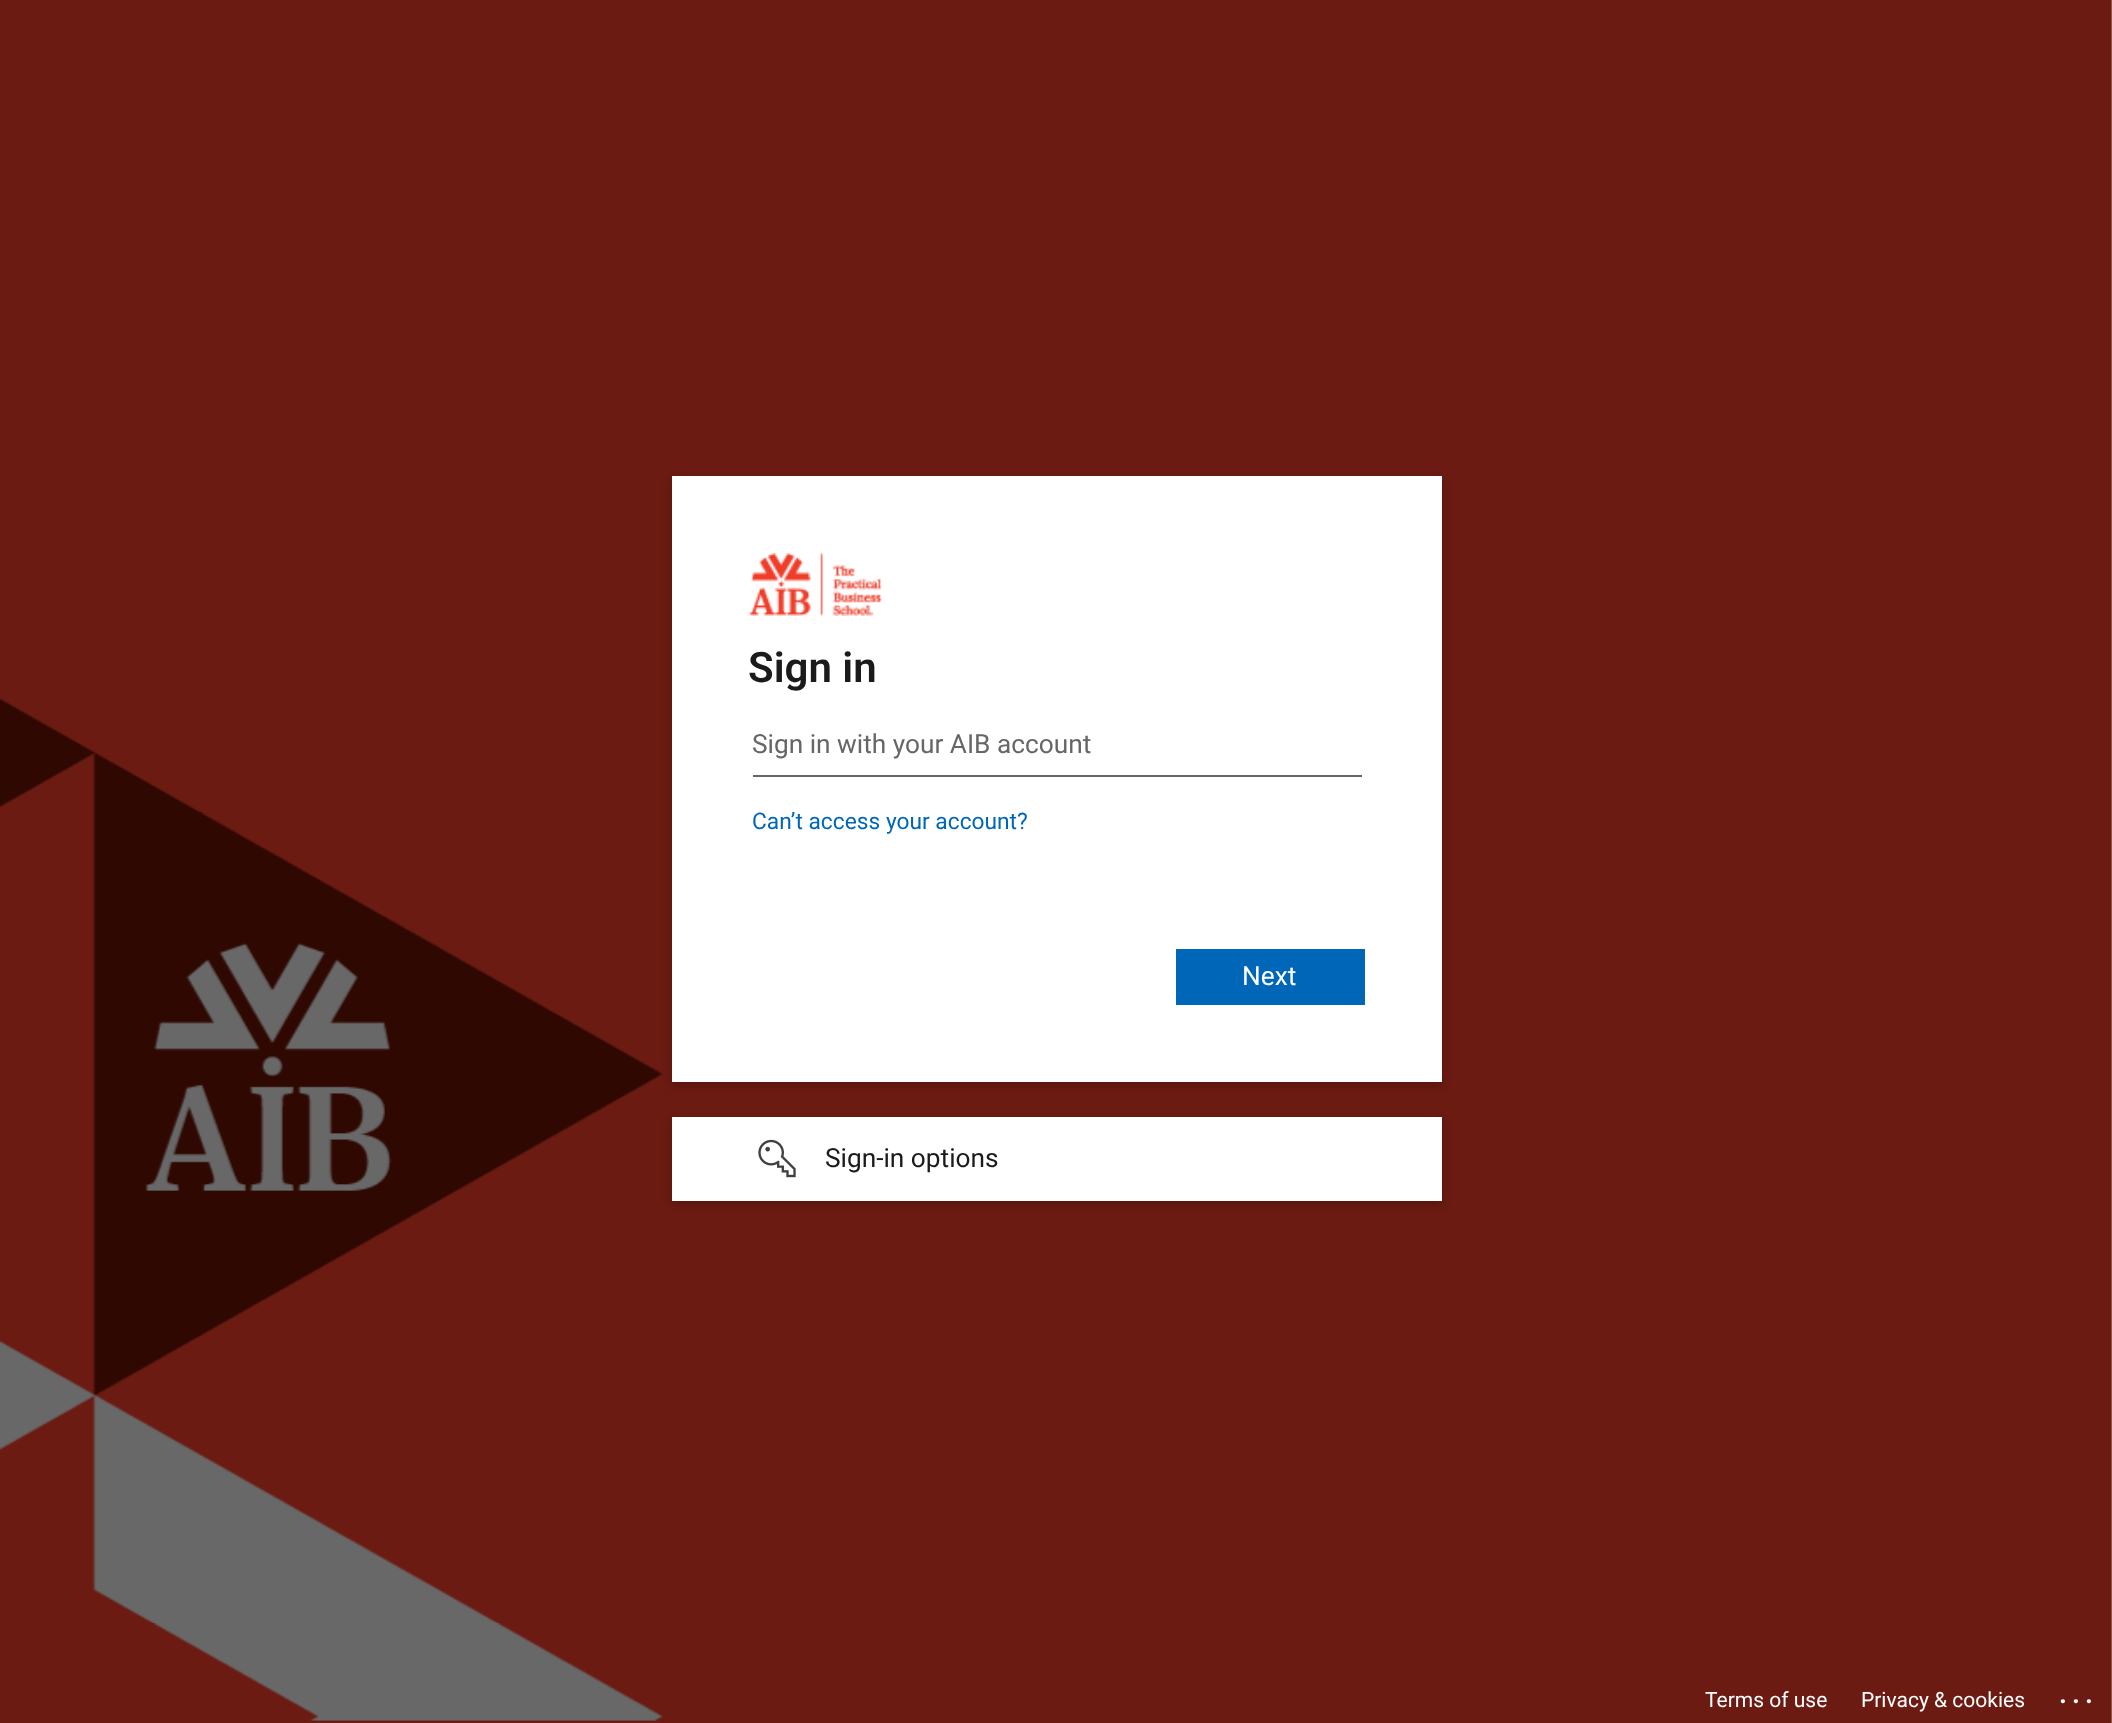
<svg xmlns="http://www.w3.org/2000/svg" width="2112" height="1723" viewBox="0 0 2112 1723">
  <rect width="100%" height="100%" fill="rgb(255,255,255)"/>
  <image x="0" y="0" width="2112" height="1723" href="pic1.png"/>
  <rect x="672" y="480" width="770" height="605" fill="rgba(0,0,0,0.2)" filter="blur(5px)"/>
  <rect x="672" y="476" width="770" height="606" fill="rgb(255,255,255)"/>
  <image x="749" y="553" width="133" height="63" href="pic2.png"/>
  <text x="748" y="682" font-family="Roboto" font-size="42" font-weight="600" fill="rgb(27,27,27)">Sign in</text>
  <rect x="753" y="775" width="609" height="2" fill="rgb(102,102,102)"/>
  <text x="752" y="753" font-family="Roboto" font-size="26.25" fill="rgb(102,102,102)">Sign in with your AIB account</text>
  <text x="752" y="829" font-family="Roboto" font-size="22.75" fill="rgb(0,103,184)">Can’t access your account?</text>
  <rect x="1176" y="949" width="189" height="56" fill="rgb(0,103,184)"/>
  <text x="1242" y="985" font-family="Roboto" font-size="26.25" fill="rgb(255,255,255)">Next</text>
  <rect x="672" y="1120" width="770" height="84" fill="rgba(0,0,0,0.2)" filter="blur(5px)"/>
  <rect x="672" y="1117" width="770" height="84" fill="rgb(255,255,255)"/>
  <image x="758" y="1139" width="38" height="39" href="pic3.png"/>
  <text x="825" y="1167" font-family="Roboto" font-size="26.25" fill="rgb(27,27,27)">Sign-in options</text>
  <g font-family="Roboto" font-size="21" fill="rgb(255,255,255)">
    <text x="1705" y="1707">Terms of use</text>
    <text x="1861" y="1707">Privacy &amp; cookies</text>
  </g>
  <text x="2059" y="1703" font-family="Roboto" font-size="28" font-weight="600" letter-spacing="5" fill="rgb(255,255,255)">...</text>
</svg>
